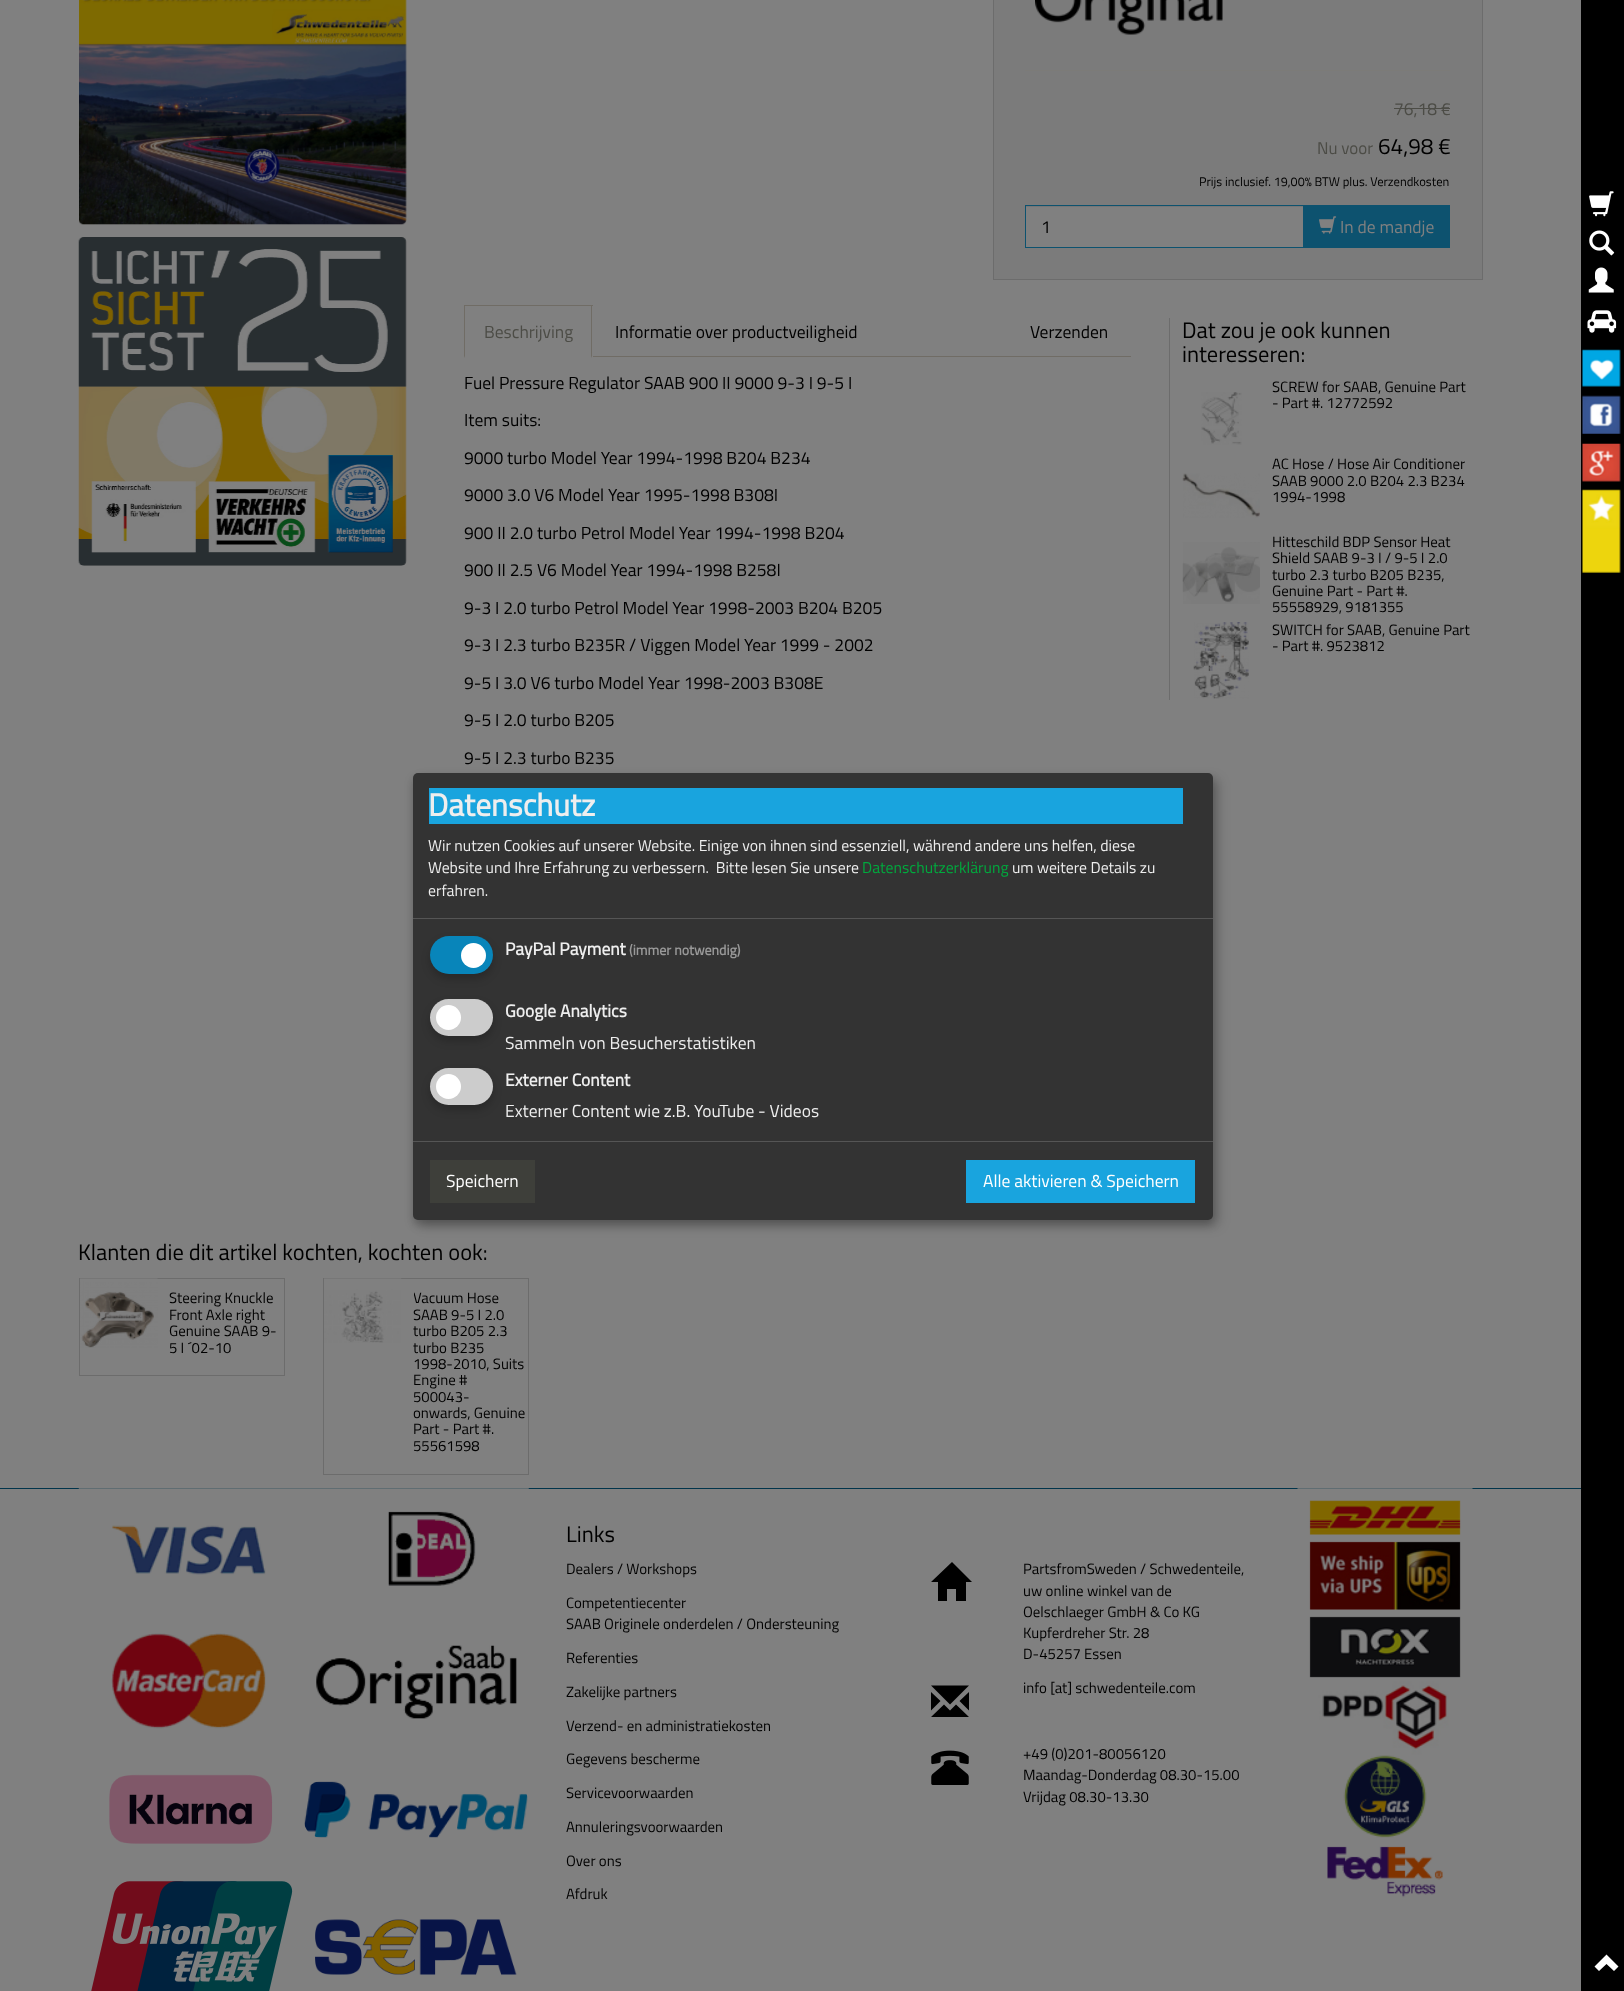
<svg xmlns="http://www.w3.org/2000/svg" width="1624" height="1991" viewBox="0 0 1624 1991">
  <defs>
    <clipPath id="clip1"><rect x="414" y="1279" width="114" height="195"/></clipPath>
  </defs>
  <rect width="100%" height="100%" fill="rgb(128,128,128)"/>
  <image x="79" y="0" width="328" height="225" href="pic1.png"/>
  <image x="78" y="237" width="329" height="329" href="pic2.png"/>
  <rect x="993.5" y="-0.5" width="489" height="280" fill="rgb(123,123,123)" stroke="rgb(108,108,108)"/>
  <image x="1035" y="0" width="188" height="35" href="pic3.png"/>
  <rect x="1025" y="70" width="425" height="1" fill="rgb(124,123,120)"/>
  <text x="1394" y="115" font-family="Titillium Web" font-size="17.5" fill="rgb(76,76,70)">76,18 €</text>
  <rect x="1394" y="108" width="56" height="1" fill="rgb(76,76,70)"/>
  <text x="1317" y="154" font-family="Titillium Web" font-size="17" fill="rgb(76,76,70)">Nu voor</text>
  <text x="1378" y="154" font-family="Titillium Web" font-size="22.5" fill="rgb(0,0,0)">64,98 €</text>
  <text x="1199" y="186" font-family="Titillium Web" font-size="12.6" fill="rgb(0,0,0)">Prijs inclusief. 19,00% BTW plus. Verzendkosten</text>
  <rect x="1026" y="207" width="277" height="40" fill="rgb(128,128,128)"/>
  <rect x="1026" y="206" width="277" height="1" fill="rgb(118,118,118)"/>
  <rect x="1025.5" y="205.5" width="278" height="42" fill="none" stroke="rgb(13,82,111)"/>
  <text x="1041" y="233" font-family="Titillium Web" font-size="17.5" fill="rgb(0,0,0)">1</text>
  <rect x="1304" y="205" width="146" height="43" fill="rgb(13,82,111)"/>
  <image x="1319" y="216" width="18" height="18" href="pic4.png"/>
  <text x="1340" y="233" font-family="Titillium Web" font-size="17.5" fill="rgb(128,128,128)">In de mandje</text>
  <rect x="593" y="356" width="538" height="1" fill="rgb(112,108,101)"/>
  <rect x="464" y="305" width="129" height="1" fill="rgb(112,108,101)"/>
  <path d="M592 305V358L591 356V306Z" fill="rgb(112,108,101)"/>
  <path d="M464 358V305L465 306V356Z" fill="rgb(112,108,101)"/>
  <text x="484" y="338" font-family="Titillium Web" font-size="17.5" fill="rgb(76,76,70)">Beschrijving</text>
  <g font-family="Titillium Web" font-size="17.5" fill="rgb(0,0,0)">
    <text x="615" y="338">Informatie over productveiligheid</text>
    <text x="1030" y="338">Verzenden</text>
    <text x="464" y="389">Fuel Pressure Regulator SAAB 900 II 9000 9-3 I 9-5 I</text>
    <text x="464" y="426">Item suits:</text>
    <text x="464" y="464">9000 turbo Model Year 1994-1998 B204 B234</text>
    <text x="464" y="501">9000 3.0 V6 Model Year 1995-1998 B308I</text>
    <text x="464" y="539">900 II 2.0 turbo Petrol Model Year 1994-1998 B204</text>
    <text x="464" y="576">900 II 2.5 V6 Model Year 1994-1998 B258I</text>
    <text x="464" y="614">9-3 I 2.0 turbo Petrol Model Year 1998-2003 B204 B205</text>
    <text x="464" y="651">9-3 I 2.3 turbo B235R / Viggen Model Year 1999 - 2002</text>
    <text x="464" y="689">9-5 I 3.0 V6 turbo Model Year 1998-2003 B308E</text>
    <text x="464" y="726">9-5 I 2.0 turbo B205</text>
    <text x="464" y="764">9-5 I 2.3 turbo B235</text>
  </g>
  <rect x="1169" y="318" width="1" height="382" fill="rgb(108,108,108)"/>
  <g font-family="Titillium Web" font-size="22.5" fill="rgb(0,0,0)">
    <text>
      <tspan x="1182" y="338">Dat zou je ook kunnen</tspan>
      <tspan x="1182" y="362">interesseren:</tspan>
    </text>
  </g>
  <image x="1201" y="392" width="41" height="53" href="pic5.png"/>
  <g font-family="Titillium Web" font-size="14.9" fill="rgb(0,0,0)">
    <text>
      <tspan x="1272" y="392">SCREW for SAAB, Genuine Part</tspan>
      <tspan x="1272" y="408">- Part #. 12772592</tspan>
    </text>
  </g>
  <image x="1182" y="473" width="78" height="45" href="pic6.png"/>
  <g font-family="Titillium Web" font-size="14.9" fill="rgb(0,0,0)">
    <text>
      <tspan x="1272" y="469">AC Hose / Hose Air Conditioner</tspan>
      <tspan x="1272" y="486">SAAB 9000 2.0 B204 2.3 B234</tspan>
      <tspan x="1272" y="502">1994-1998</tspan>
    </text>
  </g>
  <image x="1182" y="542" width="78" height="62" href="pic7.png"/>
  <g font-family="Titillium Web" font-size="14.9" fill="rgb(0,0,0)">
    <text>
      <tspan x="1272" y="547">Hitteschild BDP Sensor Heat</tspan>
      <tspan x="1272" y="563">Shield SAAB 9-3 I / 9-5 I 2.0</tspan>
      <tspan x="1272" y="580">turbo 2.3 turbo B205 B235,</tspan>
      <tspan x="1272" y="596">Genuine Part - Part #.</tspan>
      <tspan x="1272" y="612">55558929, 9181355</tspan>
    </text>
  </g>
  <image x="1193" y="622" width="56" height="77" href="pic8.png"/>
  <g font-family="Titillium Web" font-size="14.9" fill="rgb(0,0,0)">
    <text>
      <tspan x="1272" y="635">SWITCH for SAAB, Genuine Part</tspan>
      <tspan x="1272" y="651">- Part #. 9523812</tspan>
    </text>
  </g>
  <text x="78" y="1260" font-family="Titillium Web" font-size="22.5" fill="rgb(0,0,0)">Klanten die dit artikel kochten, kochten ook:</text>
  <rect x="79.5" y="1278.5" width="205" height="97" fill="none" stroke="rgb(108,108,108)"/>
  <image x="80" y="1278" width="78" height="70" href="pic9.png"/>
  <g font-family="Titillium Web" font-size="14.9" fill="rgb(0,0,0)">
    <text>
      <tspan x="169" y="1303">Steering Knuckle</tspan>
      <tspan x="169" y="1320">Front Axle right</tspan>
      <tspan x="169" y="1336">Genuine SAAB 9-</tspan>
      <tspan x="169" y="1353">5 I ´02-10</tspan>
    </text>
  </g>
  <rect x="323.5" y="1278.5" width="205" height="196" fill="none" stroke="rgb(108,108,108)"/>
  <image x="324" y="1278" width="78" height="65" href="pic10.png"/>
  <g clip-path="url(#clip1)">
    <text x="413" y="1303" font-family="Titillium Web" font-size="14.9" fill="rgb(0,0,0)">Vacuum Hose</text>
  </g>
  <g font-family="Titillium Web" font-size="14.9" fill="rgb(0,0,0)">
    <text>
      <tspan x="413" y="1320">SAAB 9-5 I 2.0</tspan>
      <tspan x="413" y="1336">turbo B205 2.3</tspan>
      <tspan x="413" y="1353">turbo B235</tspan>
      <tspan x="413" y="1369">1998-2010, Suits</tspan>
      <tspan x="413" y="1385">Engine #</tspan>
      <tspan x="413" y="1402">500043-</tspan>
      <tspan x="413" y="1418">onwards, Genuine</tspan>
      <tspan x="413" y="1434">Part - Part #.</tspan>
      <tspan x="413" y="1451">55561598</tspan>
    </text>
  </g>
  <rect x="1581" y="0" width="43" height="1991" fill="rgb(0,0,0)"/>
  <image x="1589" y="191" width="25" height="26" href="pic11.png"/>
  <image x="1589" y="230" width="26" height="26" href="pic12.png"/>
  <image x="1588" y="267" width="26" height="26" href="pic13.png"/>
  <image x="1587" y="310" width="30" height="23" href="pic14.png"/>
  <image x="1582" y="349" width="39" height="38" href="pic15.png"/>
  <image x="1582" y="395" width="39" height="39" href="pic16.png"/>
  <image x="1582" y="443" width="39" height="39" href="pic17.png"/>
  <image x="1582" y="489" width="39" height="84" href="pic18.png"/>
  <path d="M1594.5 1966.5L1599 1971L1606.5 1964L1614 1971L1618.5 1966.5L1606.5 1954.5Z" fill="rgb(255,255,255)"/>
  <rect x="419" y="779" width="800" height="447" rx="5" fill="rgba(0,0,0,0.19)" filter="blur(6px)"/>
  <rect x="413" y="778" width="800" height="447" rx="5" fill="rgba(0,0,0,0.2)" filter="blur(4px)"/>
  <rect x="413" y="773" width="800" height="447" rx="5" fill="rgb(51,51,51)"/>
  <rect x="413" y="918" width="800" height="1" fill="rgb(85,85,85)"/>
  <rect x="429" y="788" width="754" height="36" fill="rgb(25,164,222)"/>
  <text x="428" y="816" font-family="Titillium Web" font-size="31.5" font-weight="bold" fill="rgb(238,238,238)">Datenschutz</text>
  <g font-family="Titillium Web" font-size="15.75" fill="rgb(238,238,238)">
    <text xml:space="preserve"><tspan x="428" y="851">Wir nutzen Cookies auf unserer Website. Einige von ihnen sind essenziell, während andere uns helfen, diese</tspan><tspan x="428" y="873">Website und Ihre Erfahrung zu verbessern.  Bitte lesen Sie unsere</tspan></text>
  </g>
  <text x="862" y="873" font-family="Titillium Web" font-size="15.75" fill="rgb(0,170,62)">Datenschutzerklärung</text>
  <g font-family="Titillium Web" font-size="15.75" fill="rgb(238,238,238)">
    <text x="1012" y="873">um weitere Details zu</text>
    <text x="428" y="896">erfahren.</text>
  </g>
  <rect x="430" y="941" width="63" height="38" rx="19" fill="rgba(0,0,0,0.2)" filter="blur(4px)"/>
  <rect x="430" y="936" width="63" height="38" rx="19" fill="rgb(8,133,186)"/>
  <circle cx="473.5" cy="955.5" r="12.5" fill="rgb(255,255,255)"/>
  <text x="505" y="955" font-family="Titillium Web" font-size="17.5" font-weight="bold" fill="rgb(238,238,238)">PayPal Payment</text>
  <text x="629" y="955" font-family="Titillium Web" font-size="14" font-weight="bold" fill="rgb(153,153,153)">(immer notwendig)</text>
  <rect x="430" y="1004" width="63" height="37" rx="18.5" fill="rgba(0,0,0,0.2)" filter="blur(4px)"/>
  <rect x="430" y="999" width="63" height="37" rx="18.5" fill="rgb(204,204,204)"/>
  <circle cx="448.5" cy="1017.5" r="12.5" fill="rgb(255,255,255)"/>
  <text x="505" y="1017" font-family="Titillium Web" font-size="17.5" font-weight="bold" fill="rgb(238,238,238)">Google Analytics</text>
  <text x="505" y="1049" font-family="Titillium Web" font-size="17.5" fill="rgb(238,238,238)">Sammeln von Besucherstatistiken</text>
  <rect x="430" y="1073" width="63" height="37" rx="18.5" fill="rgba(0,0,0,0.2)" filter="blur(4px)"/>
  <rect x="430" y="1068" width="63" height="37" rx="18.5" fill="rgb(204,204,204)"/>
  <circle cx="448.5" cy="1086.5" r="12.5" fill="rgb(255,255,255)"/>
  <text x="505" y="1086" font-family="Titillium Web" font-size="17.5" font-weight="bold" fill="rgb(238,238,238)">Externer Content</text>
  <text x="505" y="1117" font-family="Titillium Web" font-size="17.5" fill="rgb(238,238,238)">Externer Content wie z.B. YouTube - Videos</text>
  <rect x="413" y="1141" width="800" height="1" fill="rgb(85,85,85)"/>
  <rect x="430" y="1160" width="105" height="43" fill="rgb(62,63,58)"/>
  <text x="446" y="1187" font-family="Titillium Web" font-size="17.5" fill="rgb(255,255,255)">Speichern</text>
  <rect x="966" y="1160" width="229" height="43" fill="rgb(25,164,222)"/>
  <text x="983" y="1187" font-family="Titillium Web" font-size="17.5" fill="rgb(255,255,255)">Alle aktivieren &amp; Speichern</text>
  <rect x="0" y="1488" width="1581" height="1" fill="rgb(1,52,75)"/>
  <image x="78" y="1488" width="451" height="241" href="pic19.png"/>
  <image x="109" y="1774" width="164" height="70" href="pic20.png"/>
  <image x="304" y="1781" width="224" height="57" href="pic21.png"/>
  <image x="91" y="1881" width="202" height="110" href="pic22.png"/>
  <image x="315" y="1919" width="202" height="56" href="pic23.png"/>
  <text x="566" y="1542" font-family="Titillium Web" font-size="22.5" fill="rgb(0,0,0)">Links</text>
  <g font-family="Titillium Web" font-size="14.9" fill="rgb(0,0,0)">
    <text x="566" y="1574">Dealers / Workshops</text>
    <text>
      <tspan x="566" y="1608">Competentiecenter</tspan>
      <tspan x="566" y="1629">SAAB Originele onderdelen / Ondersteuning</tspan>
    </text>
    <text x="566" y="1663">Referenties</text>
    <text x="566" y="1697">Zakelijke partners</text>
    <text x="566" y="1731">Verzend- en administratiekosten</text>
    <text x="566" y="1764">Gegevens bescherme</text>
    <text x="566" y="1798">Servicevoorwaarden</text>
    <text x="566" y="1832">Annuleringsvoorwaarden</text>
    <text x="566" y="1866">Over ons</text>
    <text x="566" y="1899">Afdruk</text>
  </g>
  <path d="M931 1582L952 1562L972 1582H966V1601H956V1589H947V1601H938V1582Z" fill="rgb(0,0,0)"/>
  <g font-family="Titillium Web" font-size="14.9" fill="rgb(0,0,0)">
    <text>
      <tspan x="1023" y="1574">PartsfromSweden / Schwedenteile,</tspan>
      <tspan x="1023" y="1596">uw online winkel van de</tspan>
      <tspan x="1023" y="1617">Oelschlaeger GmbH &amp; Co KG</tspan>
      <tspan x="1023" y="1638">Kupferdreher Str. 28</tspan>
      <tspan x="1023" y="1659">D-45257 Essen</tspan>
    </text>
  </g>
  <path d="M931 1717L944 1704.5L950 1710.5L956 1704.5L969 1717ZM931 1710.5V1692L940.5 1701ZM931 1685.5L950 1704.5L969 1685.5ZM959.5 1701L969 1692V1710.5Z" fill="rgb(0,0,0)"/>
  <text x="1023" y="1693" font-family="Titillium Web" font-size="14.9" fill="rgb(0,0,0)">info [at] schwedenteile.com</text>
  <image x="931" y="1750" width="38" height="35" href="pic24.png"/>
  <g font-family="Titillium Web" font-size="14.9" fill="rgb(0,0,0)">
    <text>
      <tspan x="1023" y="1759">+49 (0)201-80056120</tspan>
      <tspan x="1023" y="1780">Maandag-Donderdag 08.30-15.00</tspan>
      <tspan x="1023" y="1802">Vrijdag 08.30-13.30</tspan>
    </text>
  </g>
  <image x="1297" y="1488" width="176" height="410" href="pic25.png"/>
</svg>
